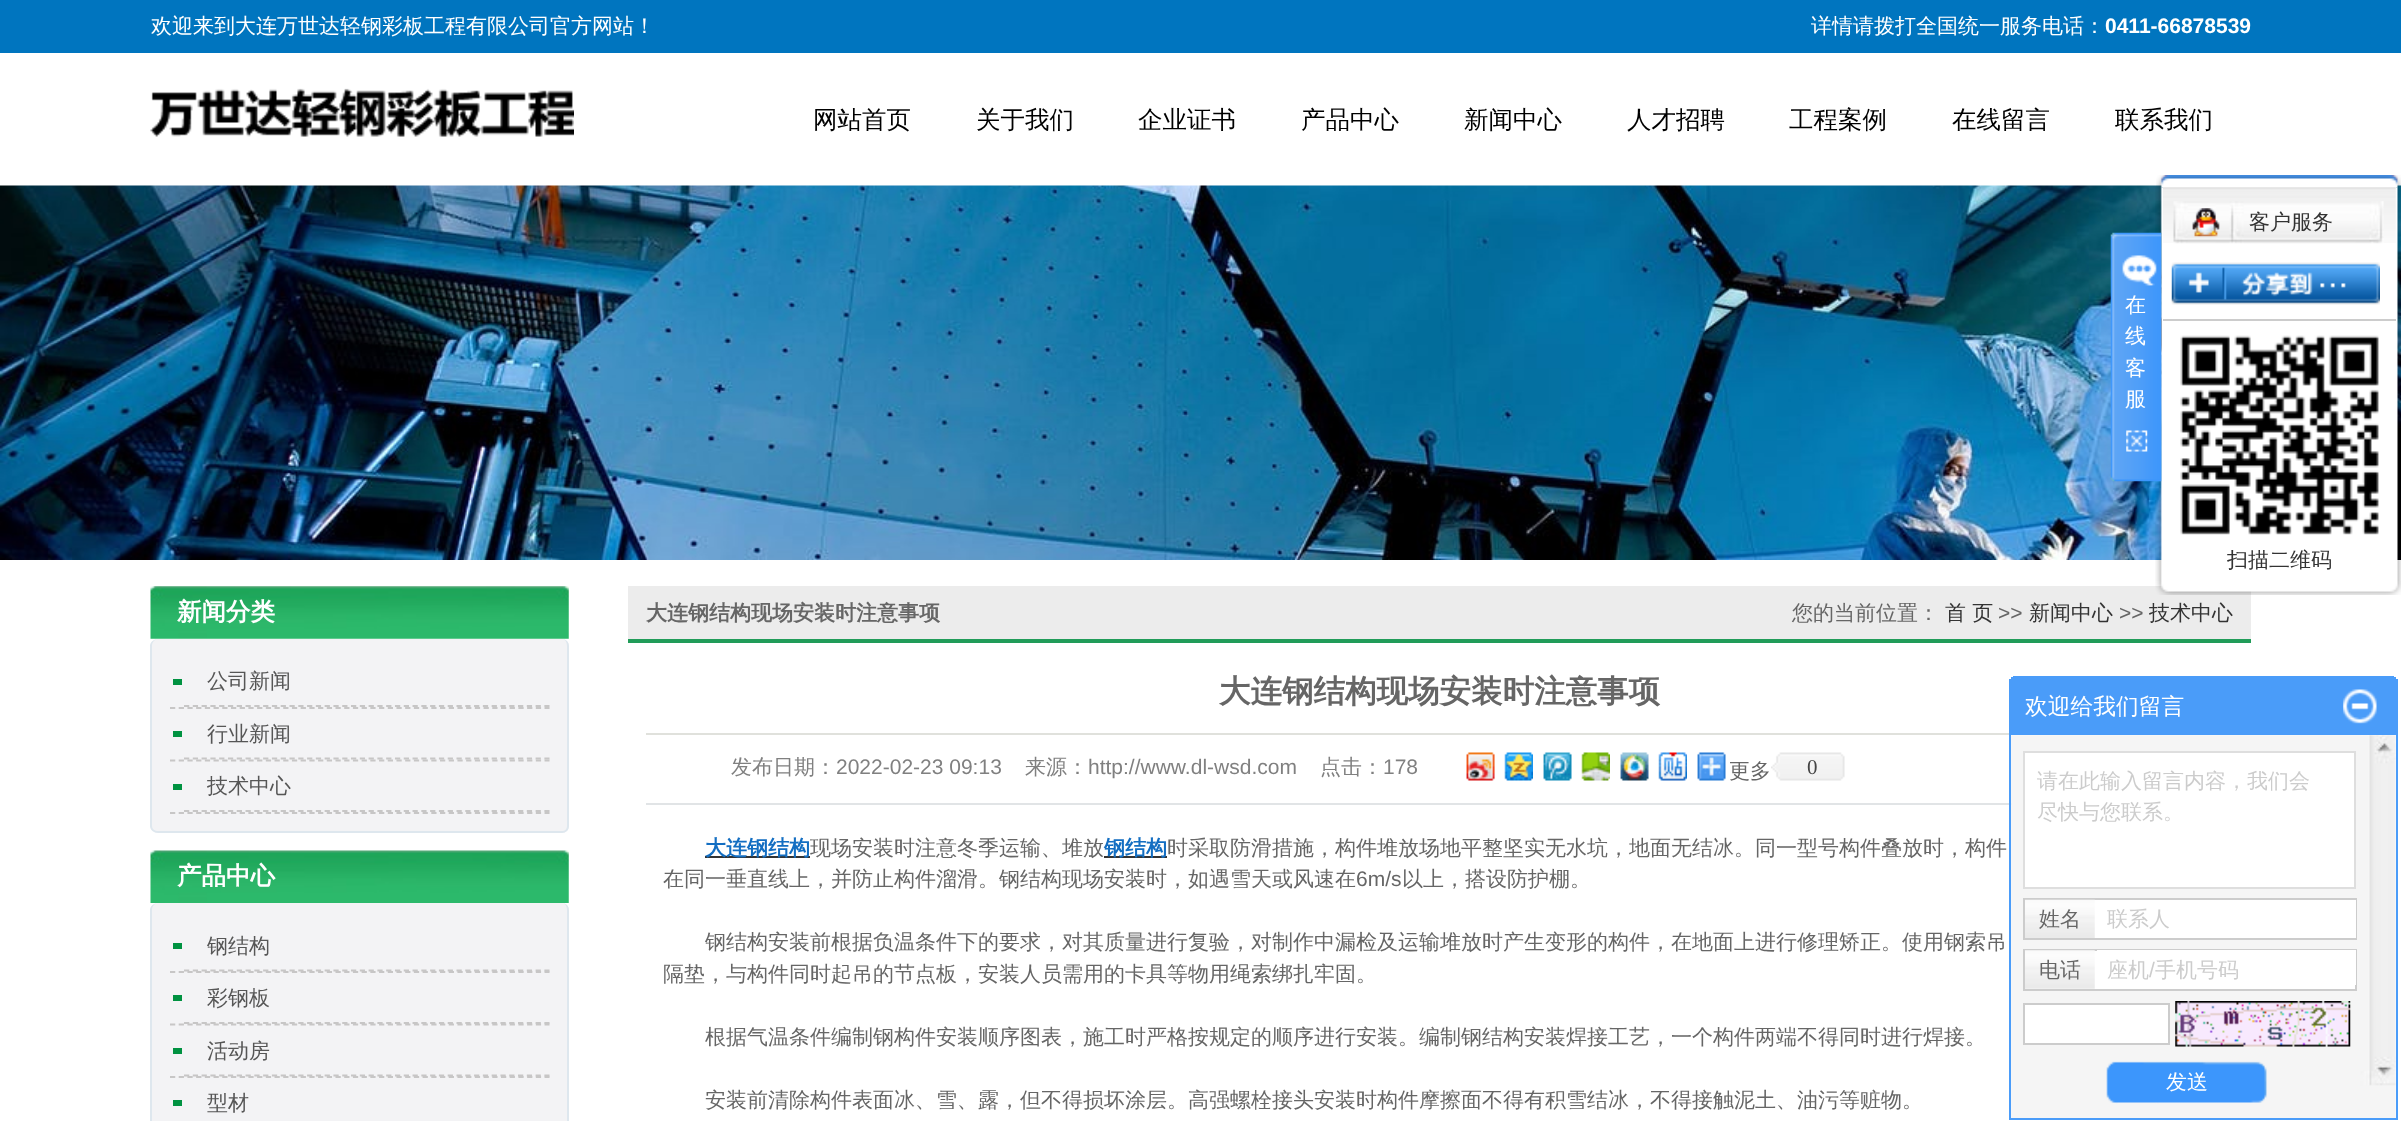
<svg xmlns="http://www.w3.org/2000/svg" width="2401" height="1121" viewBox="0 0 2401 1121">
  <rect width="100%" height="100%" fill="rgb(255,255,255)"/>
  <rect x="0" y="0" width="2401" height="53" fill="rgb(0,117,191)"/>
  <g font-family="WenQuanYi Zen Hei" font-size="21" font-weight="500" fill="rgb(255,255,255)">
    <text x="151" y="33">欢迎来到大连万世达轻钢彩板工程有限公司官方网站！</text>
    <text x="1811" y="33">详情请拨打全国统一服务电话：</text>
  </g>
  <text x="2105" y="33" font-family="Liberation Sans" font-size="21" font-weight="bold" fill="rgb(255,255,255)">0411-66878539</text>
  <image x="150" y="88" width="424" height="49" href="pic1.png"/>
  <g font-family="WenQuanYi Zen Hei" font-size="24.5" font-weight="500" fill="rgb(0,0,0)">
    <text x="813" y="128">网站首页</text>
    <text x="976" y="128">关于我们</text>
    <text x="1138" y="128">企业证书</text>
    <text x="1301" y="128">产品中心</text>
    <text x="1464" y="128">新闻中心</text>
    <text x="1627" y="128">人才招聘</text>
    <text x="1789" y="128">工程案例</text>
    <text x="1952" y="128">在线留言</text>
    <text x="2115" y="128">联系我们</text>
  </g>
  <image x="0" y="185" width="2401" height="375" href="pic2.png"/>
  <image x="2156" y="175" width="245" height="13" href="pic5.png"/>
  <image x="2155" y="187" width="246" height="394" href="pic6.png"/>
  <image x="2110" y="232" width="52" height="250" href="pic3.png"/>
  <g font-family="WenQuanYi Zen Hei" font-size="21" font-weight="500" fill="rgb(255,255,255)">
    <text>
      <tspan x="2125" y="312">在</tspan>
      <tspan x="2125" y="343">线</tspan>
      <tspan x="2125" y="375">客</tspan>
      <tspan x="2125" y="406">服</tspan>
    </text>
  </g>
  <image x="2126" y="430" width="22" height="22" href="pic4.png"/>
  <rect x="2163" y="187" width="233" height="1" fill="rgb(255,255,255)"/>
  <image x="2163" y="187" width="233" height="56" href="pic7.png"/>
  <image x="2173" y="201" width="211" height="43" href="pic8.png"/>
  <image x="2192" y="208" width="28" height="29" href="pic9.png"/>
  <text x="2249" y="229" font-family="WenQuanYi Zen Hei" font-size="21" font-weight="500" fill="rgb(51,51,51)">客户服务</text>
  <image x="2171" y="262" width="209" height="43" href="pic10.png"/>
  <rect x="2163" y="319" width="233" height="2" fill="rgb(204,204,204)"/>
  <image x="2180" y="335" width="199" height="200" href="pic11.png"/>
  <text x="2227" y="567" font-family="WenQuanYi Zen Hei" font-size="21" font-weight="500" fill="rgb(51,51,51)">扫描二维码</text>
  <rect x="628" y="586" width="1623" height="53" fill="rgb(236,236,236)"/>
  <image x="2155" y="581" width="246" height="14" href="pic12.png"/>
  <image x="150" y="586" width="419" height="53" href="pic13.png"/>
  <text x="177" y="620" font-family="WenQuanYi Zen Hei" font-size="24.5" font-weight="bold" fill="rgb(255,255,255)">新闻分类</text>
  <rect x="151" y="639" width="418" height="194" rx="7" fill="rgb(243,243,245)"/>
  <path d="M158 639H562C566 639 569 642 569 646V826C569 830 566 833 562 833H158C154 833 150 830 150 826V646C150 642 154 639 158 639ZM158 639H562C565 639 567 642 567 646V826C567 829 565 831 562 831H158C155 831 152 829 152 826V646C152 642 155 639 158 639Z" fill="rgb(222,231,238)" fill-rule="evenodd"/>
  <rect x="173" y="679" width="9" height="6" fill="rgb(0,146,65)"/>
  <path d="M170 708H549.5" fill="none" stroke="rgb(199,198,198)" stroke-width="1.8" stroke-dasharray="5.25 3.46"/>
  <path d="M184 706H549.5" fill="none" stroke="rgb(199,198,198)" stroke-width="1.8" stroke-dasharray="5.25 3.54"/>
  <text x="207" y="688" font-family="WenQuanYi Zen Hei" font-size="21" font-weight="500" fill="rgb(86,86,86)">公司新闻</text>
  <rect x="173" y="731" width="9" height="6" fill="rgb(0,146,65)"/>
  <path d="M170 760.5H549.5" fill="none" stroke="rgb(199,198,198)" stroke-width="1.8" stroke-dasharray="5.25 3.46"/>
  <path d="M184 758.5H549.5" fill="none" stroke="rgb(199,198,198)" stroke-width="1.8" stroke-dasharray="5.25 3.54"/>
  <text x="207" y="741" font-family="WenQuanYi Zen Hei" font-size="21" font-weight="500" fill="rgb(86,86,86)">行业新闻</text>
  <rect x="173" y="784" width="9" height="6" fill="rgb(0,146,65)"/>
  <path d="M170 813H549.5" fill="none" stroke="rgb(199,198,198)" stroke-width="1.8" stroke-dasharray="5.25 3.46"/>
  <path d="M184 811H549.5" fill="none" stroke="rgb(199,198,198)" stroke-width="1.8" stroke-dasharray="5.25 3.54"/>
  <text x="207" y="793" font-family="WenQuanYi Zen Hei" font-size="21" font-weight="500" fill="rgb(86,86,86)">技术中心</text>
  <image x="150" y="850" width="419" height="53" href="pic14.png"/>
  <text x="177" y="884" font-family="WenQuanYi Zen Hei" font-size="24.5" font-weight="bold" fill="rgb(255,255,255)">产品中心</text>
  <rect x="151" y="903" width="418" height="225" rx="7" fill="rgb(243,243,245)"/>
  <path d="M158 903H562C566 903 569 906 569 910V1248C569 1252 566 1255 562 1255H158C154 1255 150 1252 150 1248V910C150 906 154 903 158 903ZM158 903H562C565 903 567 906 567 910V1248C567 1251 565 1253 562 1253H158C155 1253 152 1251 152 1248V910C152 906 155 903 158 903Z" fill="rgb(222,231,238)" fill-rule="evenodd"/>
  <rect x="173" y="943" width="9" height="6" fill="rgb(0,146,65)"/>
  <path d="M170 972H549.5" fill="none" stroke="rgb(199,198,198)" stroke-width="1.8" stroke-dasharray="5.25 3.46"/>
  <path d="M184 970.5H549.5" fill="none" stroke="rgb(199,198,198)" stroke-width="1.8" stroke-dasharray="5.25 3.54"/>
  <text x="207" y="953" font-family="WenQuanYi Zen Hei" font-size="21" font-weight="500" fill="rgb(86,86,86)">钢结构</text>
  <rect x="173" y="995" width="9" height="6" fill="rgb(0,146,65)"/>
  <path d="M170 1024.5H549.5" fill="none" stroke="rgb(199,198,198)" stroke-width="1.8" stroke-dasharray="5.25 3.46"/>
  <path d="M184 1023H549.5" fill="none" stroke="rgb(199,198,198)" stroke-width="1.8" stroke-dasharray="5.25 3.54"/>
  <text x="207" y="1005" font-family="WenQuanYi Zen Hei" font-size="21" font-weight="500" fill="rgb(86,86,86)">彩钢板</text>
  <rect x="173" y="1048" width="9" height="6" fill="rgb(0,146,65)"/>
  <path d="M170 1077H549.5" fill="none" stroke="rgb(199,198,198)" stroke-width="1.8" stroke-dasharray="5.25 3.46"/>
  <path d="M184 1075.5H549.5" fill="none" stroke="rgb(199,198,198)" stroke-width="1.8" stroke-dasharray="5.25 3.54"/>
  <text x="207" y="1058" font-family="WenQuanYi Zen Hei" font-size="21" font-weight="500" fill="rgb(86,86,86)">活动房</text>
  <rect x="173" y="1100" width="9" height="6" fill="rgb(0,146,65)"/>
  <text x="207" y="1110" font-family="WenQuanYi Zen Hei" font-size="21" font-weight="500" fill="rgb(86,86,86)">型材</text>
  <rect x="628" y="639" width="1623" height="4" fill="rgb(33,156,89)"/>
  <text x="646" y="620" font-family="WenQuanYi Zen Hei" font-size="21" font-weight="bold" fill="rgb(102,102,102)">大连钢结构现场安装时注意事项</text>
  <text x="1792" y="620" font-family="WenQuanYi Zen Hei" font-size="21" font-weight="500" fill="rgb(102,102,102)">您的当前位置：</text>
  <text x="1945" y="620" font-family="WenQuanYi Zen Hei" font-size="21" font-weight="500" fill="rgb(51,51,51)">首 页</text>
  <text x="1998" y="620" font-family="Liberation Sans" font-size="21" fill="rgb(102,102,102)">&gt;&gt;</text>
  <text x="2029" y="620" font-family="WenQuanYi Zen Hei" font-size="21" font-weight="500" fill="rgb(51,51,51)">新闻中心</text>
  <text x="2119" y="620" font-family="Liberation Sans" font-size="21" fill="rgb(102,102,102)">&gt;&gt;</text>
  <text x="2149" y="620" font-family="WenQuanYi Zen Hei" font-size="21" font-weight="500" fill="rgb(51,51,51)">技术中心</text>
  <rect x="646" y="733" width="1363" height="2" fill="rgb(224,225,220)"/>
  <text x="1219" y="702" font-family="WenQuanYi Zen Hei" font-size="31.5" font-weight="bold" fill="rgb(102,102,102)">大连钢结构现场安装时注意事项</text>
  <rect x="646" y="803" width="1366" height="2" fill="rgb(225,228,230)"/>
  <text x="731" y="774" font-family="WenQuanYi Zen Hei" font-size="21" font-weight="500" fill="rgb(128,128,128)">发布日期：</text>
  <text x="836" y="774" font-family="Liberation Sans" font-size="21" fill="rgb(128,128,128)">2022-02-23 09:13</text>
  <text x="1025" y="774" font-family="WenQuanYi Zen Hei" font-size="21" font-weight="500" fill="rgb(128,128,128)">来源：</text>
  <text x="1088" y="774" font-family="Liberation Sans" font-size="21" fill="rgb(128,128,128)">http://www.dl-wsd.com</text>
  <text x="1320" y="774" font-family="WenQuanYi Zen Hei" font-size="21" font-weight="500" fill="rgb(128,128,128)">点击：</text>
  <text x="1383" y="774" font-family="Liberation Sans" font-size="21" fill="rgb(128,128,128)">178</text>
  <image x="1466" y="752" width="29" height="29" href="pic15.png"/>
  <image x="1504" y="752" width="29" height="29" href="pic16.png"/>
  <image x="1543" y="752" width="29" height="29" href="pic17.png"/>
  <image x="1581" y="752" width="29" height="29" href="pic18.png"/>
  <image x="1620" y="752" width="29" height="29" href="pic19.png"/>
  <image x="1658" y="752" width="29" height="29" href="pic20.png"/>
  <image x="1697" y="752" width="29" height="29" href="pic21.png"/>
  <text x="1729" y="778" font-family="WenQuanYi Zen Hei" font-size="21" font-weight="500" fill="rgb(102,102,102)">更多</text>
  <image x="1771" y="752" width="74" height="29" href="pic22.png"/>
  <text x="1807" y="774" font-family="Liberation Serif" font-size="21" fill="rgb(69,69,69)">0</text>
  <rect x="705" y="856" width="105" height="2" fill="rgb(51,51,51)"/>
  <text x="705" y="855" font-family="WenQuanYi Zen Hei" font-size="21" font-weight="bold" fill="rgb(19,110,194)">大连钢结构</text>
  <text x="810" y="855" font-family="WenQuanYi Zen Hei" font-size="21" font-weight="500" fill="rgb(102,102,102)">现场安装时注意冬季运输、堆放</text>
  <rect x="1104" y="856" width="63" height="2" fill="rgb(51,51,51)"/>
  <text x="1104" y="855" font-family="WenQuanYi Zen Hei" font-size="21" font-weight="bold" fill="rgb(19,110,194)">钢结构</text>
  <g font-family="WenQuanYi Zen Hei" font-size="21" font-weight="500" fill="rgb(102,102,102)">
    <text x="1167" y="855">时采取防滑措施，构件堆放场地平整坚实无水坑，地面无结冰。同一型号构件叠放时，构件</text>
    <text x="663" y="886">在同一垂直线上，并防止构件溜滑。钢结构现场安装时，如遇雪天或风速在</text>
  </g>
  <text x="1356" y="886" font-family="Liberation Sans" font-size="21" fill="rgb(102,102,102)">6m/s</text>
  <g font-family="WenQuanYi Zen Hei" font-size="21" font-weight="500" fill="rgb(102,102,102)">
    <text x="1402" y="886">以上，搭设防护棚。</text>
    <text x="705" y="949">钢结构安装前根据负温条件下的要求，对其质量进行复验，对制作中漏检及运输堆放时产生变形的构件，在地面上进行修理矫正。使用钢索吊</text>
    <text x="663" y="981">隔垫，与构件同时起吊的节点板，安装人员需用的卡具等物用绳索绑扎牢固。</text>
    <text x="705" y="1044">根据气温条件编制钢构件安装顺序图表，施工时严格按规定的顺序进行安装。编制钢结构安装焊接工艺，一个构件两端不得同时进行焊接。</text>
    <text x="705" y="1107">安装前清除构件表面冰、雪、露，但不得损坏涂层。高强螺栓接头安装时构件摩擦面不得有积雪结冰，不得接触泥土、油污等赃物。</text>
  </g>
  <rect x="2013" y="676" width="381" height="1" fill="rgb(74,156,249)"/>
  <rect x="2011" y="677" width="385" height="2" fill="rgb(74,156,249)"/>
  <rect x="2009" y="679" width="389" height="54" fill="rgb(74,156,249)"/>
  <text x="2025" y="714" font-family="WenQuanYi Zen Hei" font-size="22.75" font-weight="500" fill="rgb(255,255,255)">欢迎给我们留言</text>
  <image x="2343" y="689" width="34" height="35" href="pic23.png"/>
  <image x="2011" y="735" width="385" height="383" href="pic24.png"/>
  <rect x="2010" y="734" width="387" height="385" fill="none" stroke="rgb(74,156,249)" stroke-width="2"/>
  <rect x="2024" y="752" width="331" height="136" fill="rgb(255,255,255)" stroke="rgb(222,222,222)" stroke-width="2"/>
  <g font-family="WenQuanYi Zen Hei" font-size="21" font-weight="500" fill="rgb(204,204,204)">
    <text>
      <tspan x="2037" y="788">请在此输入留言内容，我们会</tspan>
      <tspan x="2037" y="819">尽快与您联系。</tspan>
    </text>
  </g>
  <rect x="2094" y="900" width="3" height="38" fill="rgb(255,255,255)"/>
  <rect x="2024" y="899" width="332" height="40" fill="none" stroke="rgb(204,204,204)" stroke-width="2"/>
  <image x="2025" y="899" width="70" height="39" href="pic25.png"/>
  <text x="2039" y="926" font-family="WenQuanYi Zen Hei" font-size="21" font-weight="500" fill="rgb(102,102,102)">姓名</text>
  <rect x="2097" y="900" width="259" height="38" fill="rgb(255,255,255)"/>
  <text x="2107" y="926" font-family="WenQuanYi Zen Hei" font-size="21" font-weight="500" fill="rgb(204,204,204)">联系人</text>
  <rect x="2024" y="950" width="332" height="40" fill="rgb(255,255,255)" stroke="rgb(204,204,204)" stroke-width="2"/>
  <image x="2025" y="950" width="70" height="39" href="pic26.png"/>
  <text x="2039" y="977" font-family="WenQuanYi Zen Hei" font-size="21" font-weight="500" fill="rgb(102,102,102)">电话</text>
  <rect x="2097" y="950" width="259" height="35" fill="rgb(255,255,255)"/>
  <text x="2107" y="977" font-family="WenQuanYi Zen Hei" font-size="21" font-weight="500" fill="rgb(204,204,204)">座机</text>
  <text x="2149" y="977" font-family="Liberation Sans" font-size="21" fill="rgb(204,204,204)">/</text>
  <text x="2155" y="977" font-family="WenQuanYi Zen Hei" font-size="21" font-weight="500" fill="rgb(204,204,204)">手机号码</text>
  <rect x="2024" y="1004" width="145" height="40" fill="rgb(255,255,255)" stroke="rgb(204,204,204)" stroke-width="2"/>
  <image x="2175" y="1001" width="176" height="46" href="pic27.png"/>
  <image x="2106" y="1061" width="161" height="43" href="pic28.png"/>
  <text x="2166" y="1089" font-family="WenQuanYi Zen Hei" font-size="21" font-weight="500" fill="rgb(255,255,255)">发送</text>
</svg>
